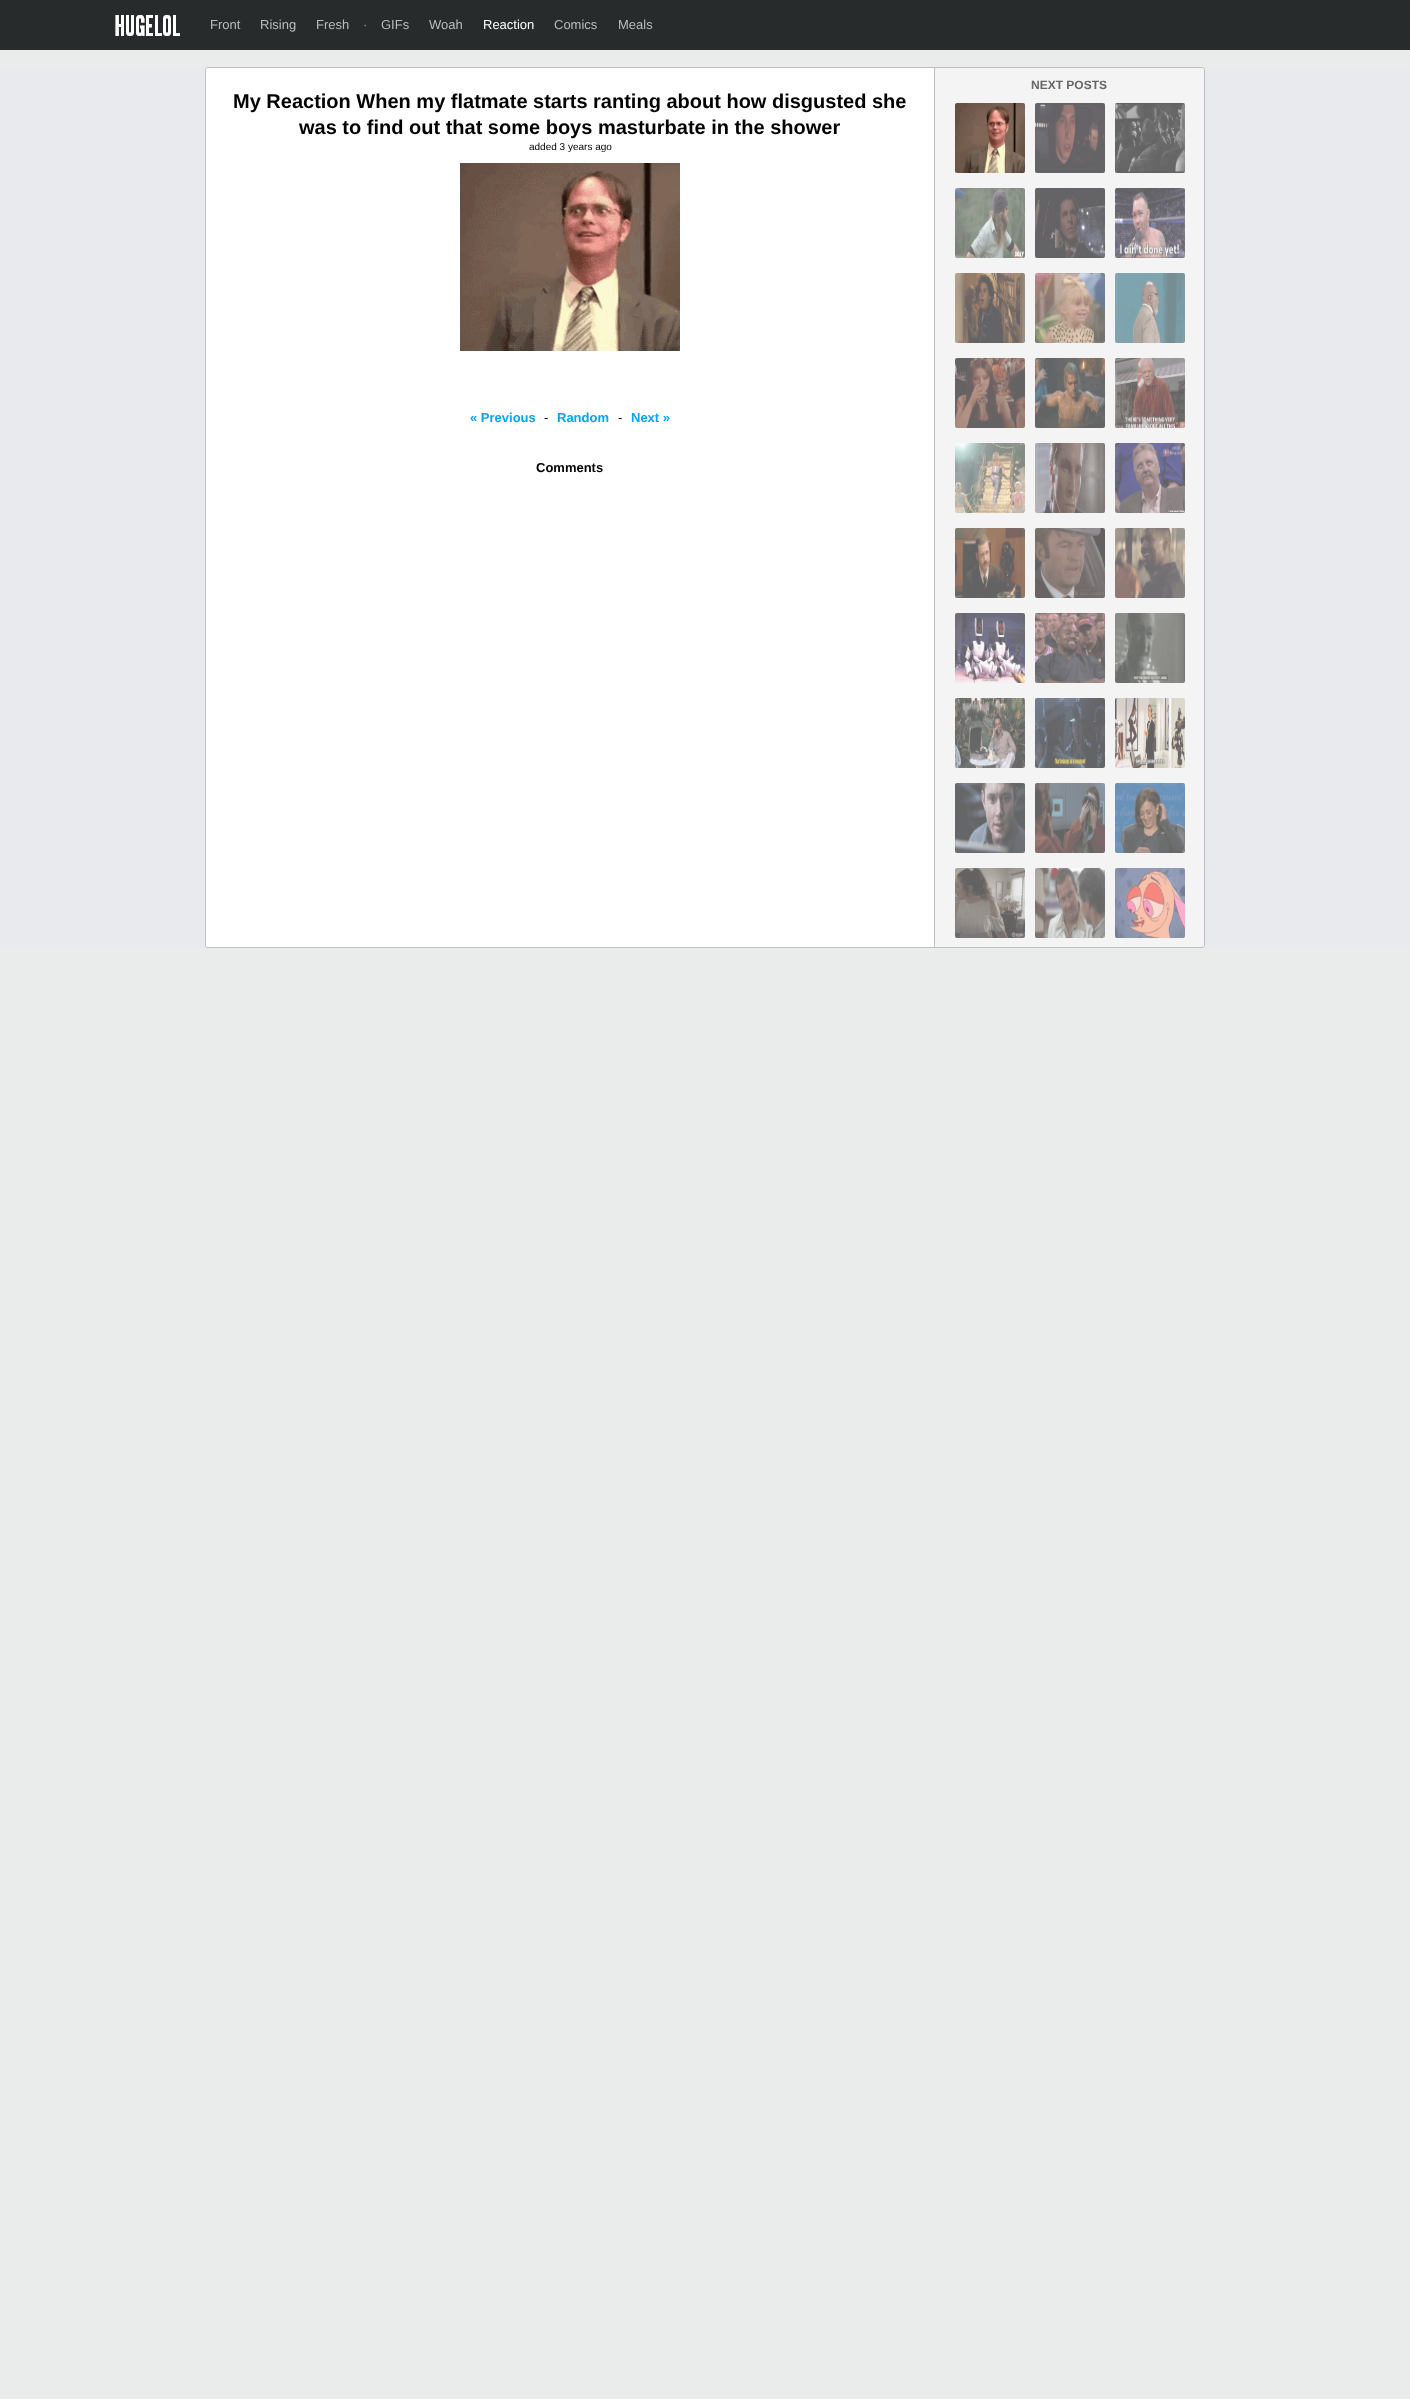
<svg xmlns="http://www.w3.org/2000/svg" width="1410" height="2399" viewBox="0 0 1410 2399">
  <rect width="100%" height="100%" fill="rgb(234,235,235)"/>
  <rect x="0" y="0" width="1410" height="50" fill="rgb(39,43,43)"/>
  <image x="115" y="15" width="65" height="21" href="pic1.png"/>
  <g font-family="Liberation Sans" font-size="13" fill="rgb(187,187,187)">
    <text x="210" y="29">Front</text>
    <text x="260" y="29">Rising</text>
    <text x="316" y="29">Fresh</text>
  </g>
  <text x="363" y="29" font-family="Liberation Sans" font-size="13" fill="rgb(153,153,153)">·</text>
  <g font-family="Liberation Sans" font-size="13" fill="rgb(187,187,187)">
    <text x="381" y="29">GIFs</text>
    <text x="429" y="29">Woah</text>
  </g>
  <text x="483" y="29" font-family="Liberation Sans" font-size="13" fill="rgb(255,255,255)">Reaction</text>
  <g font-family="Liberation Sans" font-size="13" fill="rgb(187,187,187)">
    <text x="554" y="29">Comics</text>
    <text x="618" y="29">Meals</text>
  </g>
  <rect x="0" y="67" width="1410" height="881" fill="rgb(233,234,238)"/>
  <rect x="205.5" y="67.5" width="999" height="880" rx="2.5" fill="none" stroke="rgb(191,191,191)"/>
  <path d="M934 68H1202C1203 68 1204 69 1204 70V945C1204 946 1203 947 1202 947H934Z" fill="rgb(244,244,244)"/>
  <rect x="934" y="68" width="1" height="879" fill="rgb(191,191,191)"/>
  <text x="1031" y="89" font-family="Liberation Sans" font-size="12" font-weight="bold" fill="rgb(102,102,102)">NEXT POSTS</text>
  <image x="955" y="103" width="70" height="70" href="pic2.png"/>
  <image x="1035" y="103" width="70" height="70" href="pic3.png"/>
  <image x="1115" y="103" width="70" height="70" href="pic4.png"/>
  <image x="955" y="188" width="70" height="70" href="pic5.png"/>
  <image x="1035" y="188" width="70" height="70" href="pic6.png"/>
  <image x="1115" y="188" width="70" height="70" href="pic7.png"/>
  <image x="955" y="273" width="70" height="70" href="pic8.png"/>
  <image x="1035" y="273" width="70" height="70" href="pic9.png"/>
  <image x="1115" y="273" width="70" height="70" href="pic10.png"/>
  <image x="955" y="358" width="70" height="70" href="pic11.png"/>
  <image x="1035" y="358" width="70" height="70" href="pic12.png"/>
  <image x="1115" y="358" width="70" height="70" href="pic13.png"/>
  <image x="955" y="443" width="70" height="70" href="pic14.png"/>
  <image x="1035" y="443" width="70" height="70" href="pic15.png"/>
  <image x="1115" y="443" width="70" height="70" href="pic16.png"/>
  <image x="955" y="528" width="70" height="70" href="pic17.png"/>
  <image x="1035" y="528" width="70" height="70" href="pic18.png"/>
  <image x="1115" y="528" width="70" height="70" href="pic19.png"/>
  <image x="955" y="613" width="70" height="70" href="pic20.png"/>
  <image x="1035" y="613" width="70" height="70" href="pic21.png"/>
  <image x="1115" y="613" width="70" height="70" href="pic22.png"/>
  <image x="955" y="698" width="70" height="70" href="pic23.png"/>
  <image x="1035" y="698" width="70" height="70" href="pic24.png"/>
  <image x="1115" y="698" width="70" height="70" href="pic25.png"/>
  <image x="955" y="783" width="70" height="70" href="pic26.png"/>
  <image x="1035" y="783" width="70" height="70" href="pic27.png"/>
  <image x="1115" y="783" width="70" height="70" href="pic28.png"/>
  <image x="955" y="868" width="70" height="70" href="pic29.png"/>
  <image x="1035" y="868" width="70" height="70" href="pic30.png"/>
  <image x="1115" y="868" width="70" height="70" href="pic31.png"/>
  <path d="M208 68H934V947H208C207 947 206 946 206 945V70C206 69 207 68 208 68Z" fill="rgb(255,255,255)"/>
  <g font-family="Liberation Sans" font-size="20" font-weight="bold" fill="rgb(0,0,0)">
    <text x="233" y="108">My Reaction When my flatmate starts ranting about how disgusted she</text>
    <text x="299" y="134">was to find out that some boys masturbate in the shower</text>
  </g>
  <text x="529" y="150" font-family="Liberation Sans" font-size="10" fill="rgb(0,0,0)">added 3 years ago</text>
  <image x="460" y="163" width="220" height="188" href="pic32.png"/>
  <text x="470" y="422" font-family="Liberation Sans" font-size="13" font-weight="bold" fill="rgb(0,165,240)">« Previous</text>
  <text x="544" y="422" font-family="Liberation Sans" font-size="13" fill="rgb(0,0,0)">-</text>
  <text x="557" y="422" font-family="Liberation Sans" font-size="13" font-weight="bold" fill="rgb(0,165,240)">Random</text>
  <text x="618" y="422" font-family="Liberation Sans" font-size="13" fill="rgb(0,0,0)">-</text>
  <text x="631" y="422" font-family="Liberation Sans" font-size="13" font-weight="bold" fill="rgb(0,165,240)">Next »</text>
  <text x="536" y="472" font-family="Liberation Sans" font-size="13" font-weight="bold" fill="rgb(0,0,0)">Comments</text>
</svg>
